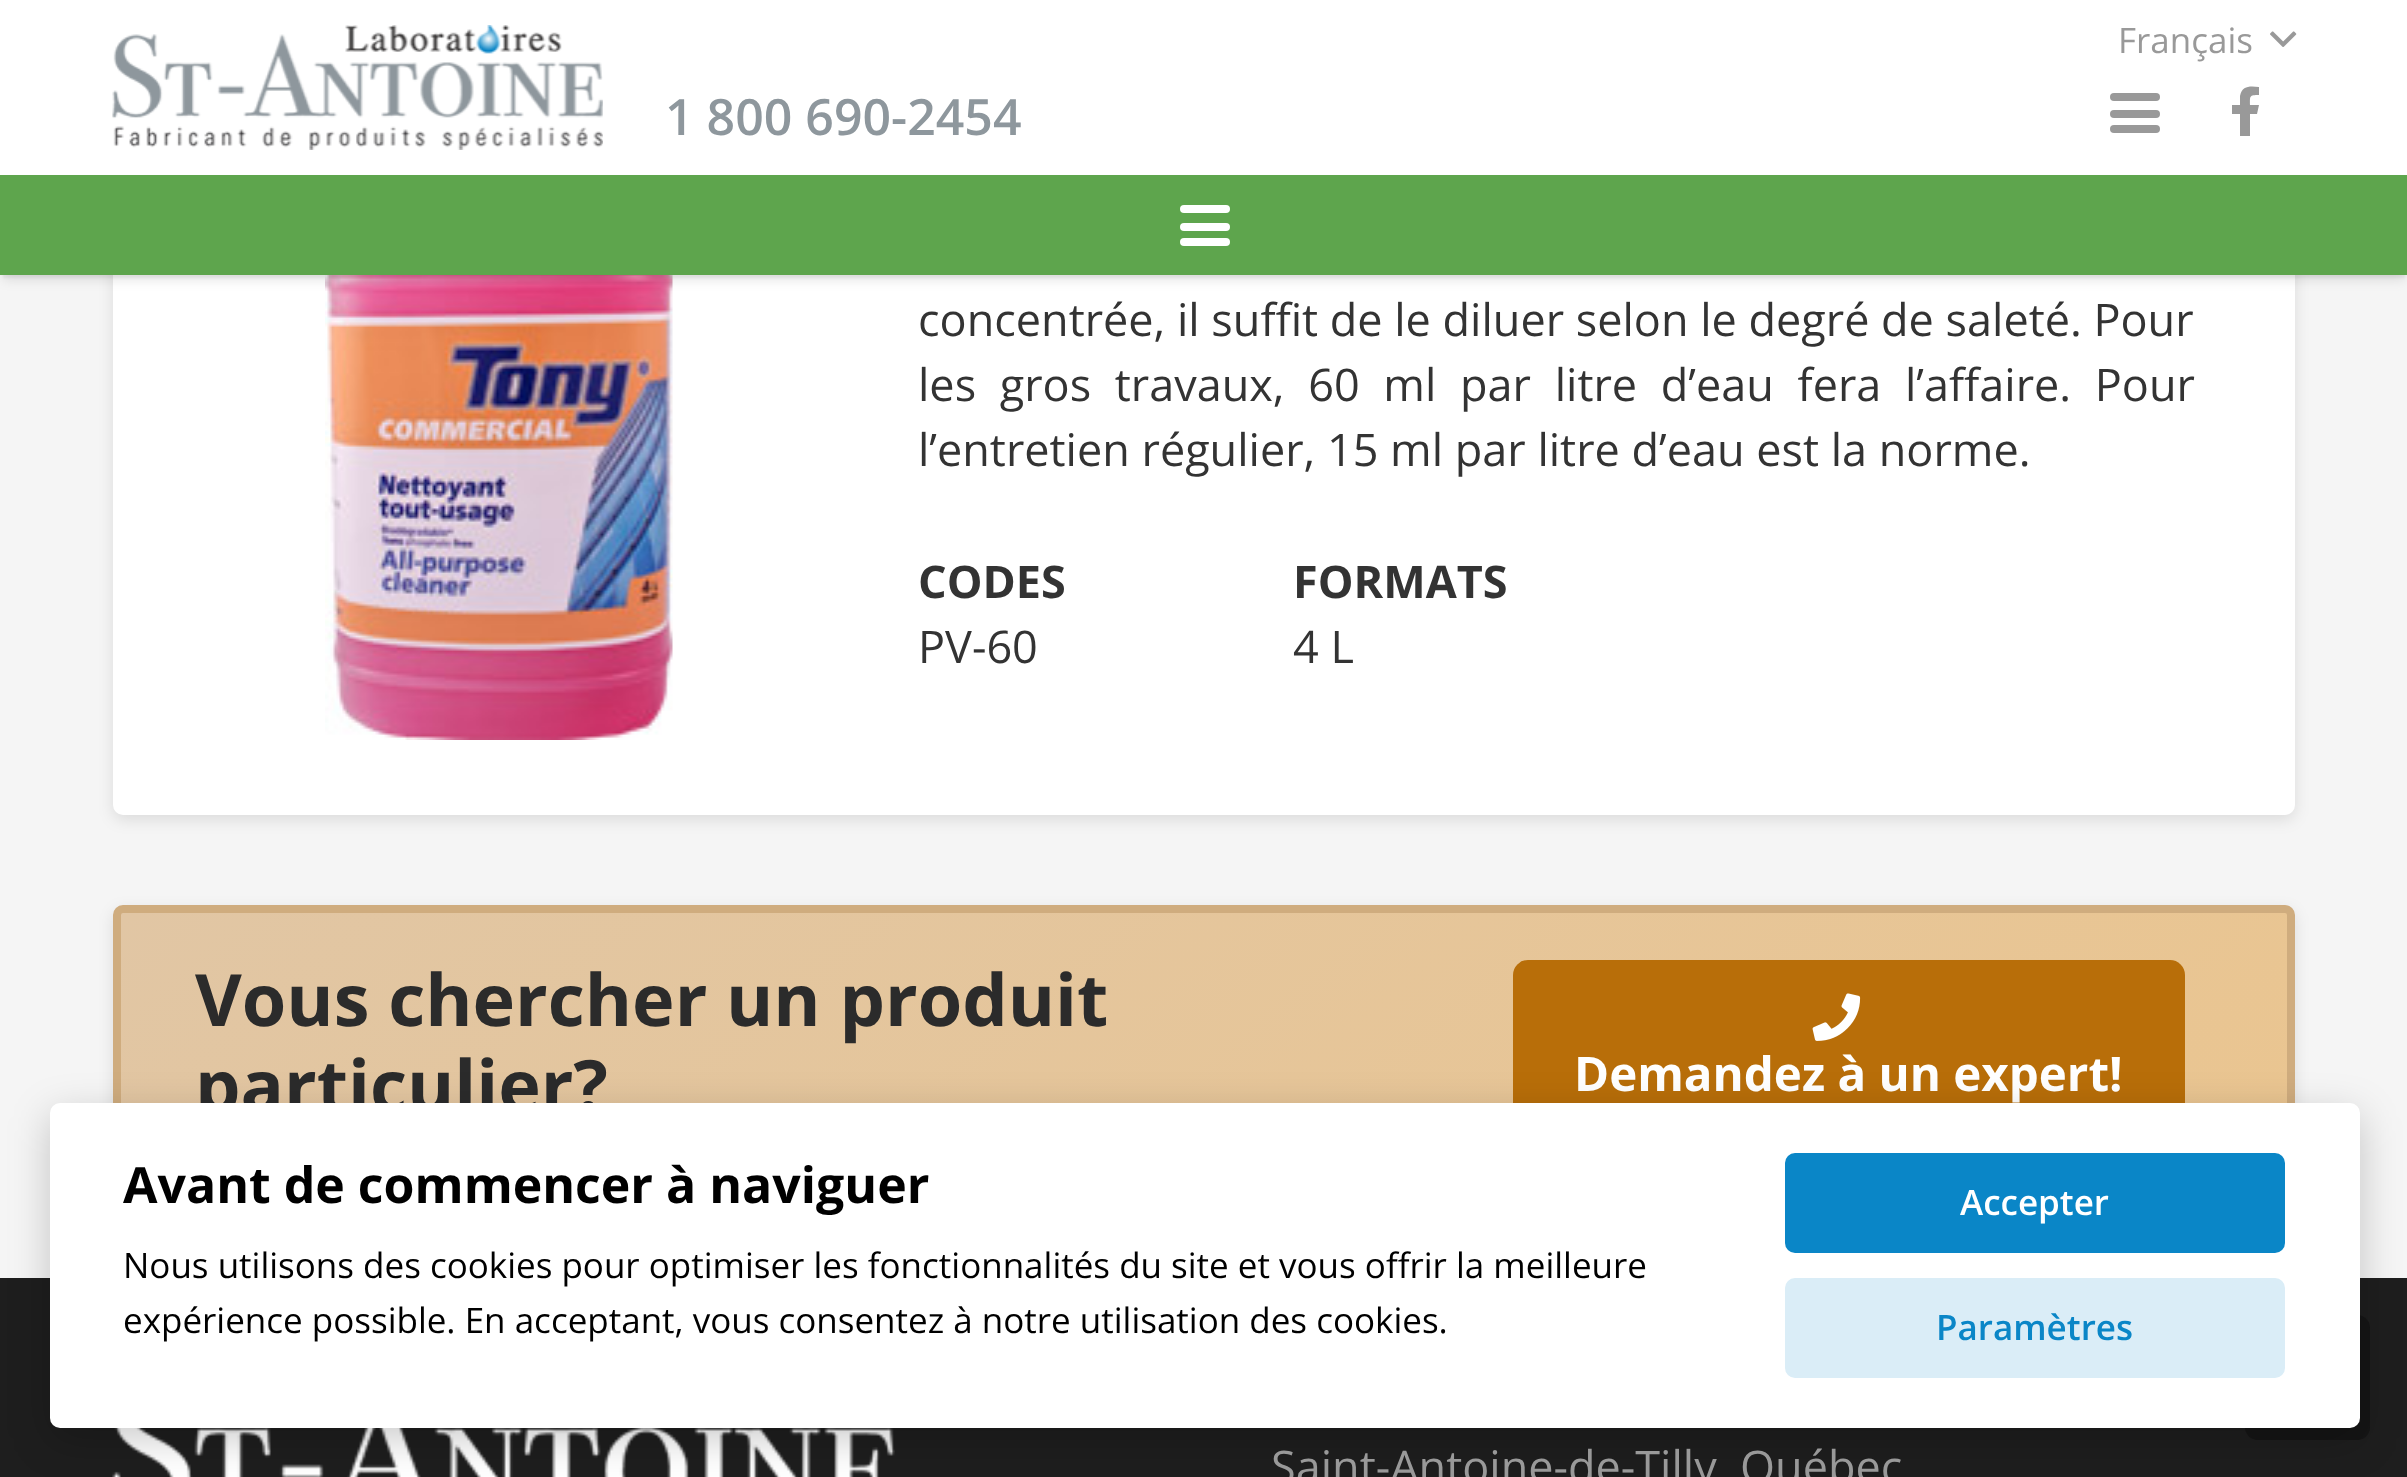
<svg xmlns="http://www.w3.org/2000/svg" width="2407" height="1477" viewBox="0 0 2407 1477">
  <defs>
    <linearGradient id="g1" gradientUnits="userSpaceOnUse" x1="690" y1="434" x2="1717" y2="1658"><stop offset="0" stop-color="rgb(225,198,164)"/><stop offset="1" stop-color="rgb(234,197,144)"/></linearGradient>
  </defs>
  <rect width="100%" height="100%" fill="rgb(245,245,245)"/>
  <rect x="113" y="-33" width="2182" height="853" rx="10" fill="rgba(0,0,0,0.1)" filter="blur(7.5px)"/>
  <rect x="113" y="-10" width="2182" height="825" rx="10" fill="rgb(255,255,255)"/>
  <rect x="0" y="0" width="2407" height="175" fill="rgb(255,255,255)"/>
  <text x="2118" y="53" font-family="Open Sans" font-size="35" fill="rgb(153,153,153)">Français</text>
  <image x="2270" y="31" width="27" height="16" href="pic1.png"/>
  <image x="112" y="25" width="491" height="125" href="pic2.png"/>
  <text x="665" y="135" font-family="Open Sans" font-size="50" font-weight="600" fill="rgb(142,151,157)">1 800 690-2454</text>
  <rect x="2110" y="110" width="50" height="8" rx="4" fill="rgb(153,153,153)"/>
  <rect x="2110" y="93" width="50" height="8" rx="4" fill="rgb(153,153,153)"/>
  <rect x="2110" y="125" width="50" height="8" rx="4" fill="rgb(153,153,153)"/>
  <path d="M2257 114H2250V136H2240V114H2232V105H2240V96C2242 85 2251 86 2259 87V95C2249 95 2250 96 2250 105H2259Z" fill="rgb(153,153,153)"/>
  <image x="325" y="275" width="348" height="465" href="pic3.png"/>
  <rect x="3" y="183" width="2402" height="95" fill="rgba(0,0,0,0.05)" filter="blur(1px)"/>
  <rect x="3" y="185" width="2402" height="95" fill="rgba(0,0,0,0.1)" filter="blur(6px)"/>
  <rect x="0" y="175" width="2407" height="100" fill="rgb(94,165,77)"/>
  <rect x="1180" y="223" width="50" height="8" rx="4" fill="rgb(255,255,255)"/>
  <rect x="1180" y="205" width="50" height="8" rx="4" fill="rgb(255,255,255)"/>
  <rect x="1180" y="238" width="50" height="8" rx="4" fill="rgb(255,255,255)"/>
  <g font-family="Open Sans" font-size="45" fill="rgb(51,51,51)">
    <text>
      <tspan x="918" y="336">concentrée, il suffit de le diluer selon le degré de saleté. Pour</tspan>
      <tspan x="918" y="401" word-spacing="12">les gros travaux, 60 ml par litre d’eau fera l’affaire. Pour</tspan>
      <tspan x="918" y="466">l’entretien régulier, 15 ml par litre d’eau est la norme.</tspan>
    </text>
  </g>
  <g font-family="Open Sans" font-size="45" font-weight="bold" fill="rgb(51,51,51)">
    <text x="918" y="598">CODES</text>
    <text x="1293" y="598">FORMATS</text>
  </g>
  <g font-family="Open Sans" font-size="45" fill="rgb(51,51,51)">
    <text x="918" y="663">PV-60</text>
    <text x="1293" y="663">4 L</text>
  </g>
  <rect x="113" y="910" width="2182" height="283" rx="10" fill="rgba(0,0,0,0.1)" filter="blur(7.5px)"/>
  <rect x="121" y="913" width="2166" height="190" fill="url(#g1)"/>
  <rect x="117" y="909" width="2174" height="275" rx="6" fill="none" stroke="rgb(207,172,126)" stroke-width="8"/>
  <g font-family="Open Sans" font-size="72" font-weight="bold" fill="rgb(43,43,43)">
    <text>
      <tspan x="195" y="1026">Vous chercher un produit</tspan>
      <tspan x="195" y="1112">particulier?</tspan>
    </text>
  </g>
  <rect x="1513" y="960" width="672" height="173" rx="15" fill="rgb(184,110,9)"/>
  <image x="1812" y="993" width="49" height="48" href="pic4.png"/>
  <text x="1574" y="1091" font-family="Open Sans" font-size="47.5" font-weight="bold" fill="rgb(255,255,255)">Demandez à un expert!</text>
  <rect x="0" y="1278" width="2407" height="199" fill="rgb(30,30,30)"/>
  <rect x="2245" y="1315" width="125" height="125" rx="13" fill="rgb(21,21,21)"/>
  <image x="112" y="1428" width="783" height="49" href="pic5.png"/>
  <rect x="50" y="1115" width="2310" height="325" rx="10" fill="rgba(0,0,0,0.2)" filter="blur(20px)"/>
  <rect x="50" y="1103" width="2310" height="325" rx="10" fill="rgb(255,255,255)"/>
  <text x="123" y="1203" font-family="Open Sans" font-size="50" font-weight="bold" fill="rgb(0,0,0)">Avant de commencer à naviguer</text>
  <g font-family="Open Sans" font-size="35" fill="rgb(0,0,0)">
    <text>
      <tspan x="123" y="1278">Nous utilisons des cookies pour optimiser les fonctionnalités du site et vous offrir la meilleure</tspan>
      <tspan x="123" y="1333">expérience possible. En acceptant, vous consentez à notre utilisation des cookies.</tspan>
    </text>
  </g>
  <rect x="1785" y="1153" width="500" height="100" rx="10" fill="rgb(10,134,199)"/>
  <text x="1960" y="1215" font-family="Open Sans" font-size="35" font-weight="600" fill="rgb(255,255,255)">Accepter</text>
  <rect x="1785" y="1278" width="500" height="100" rx="10" fill="rgb(218,237,247)"/>
  <text x="1936" y="1340" font-family="Open Sans" font-size="35" font-weight="600" fill="rgb(10,134,199)">Paramètres</text>
  <text x="1271" y="1483" font-family="Open Sans" font-size="45" fill="rgb(153,153,153)">Saint-Antoine-de-Tilly, Québec</text>
</svg>
